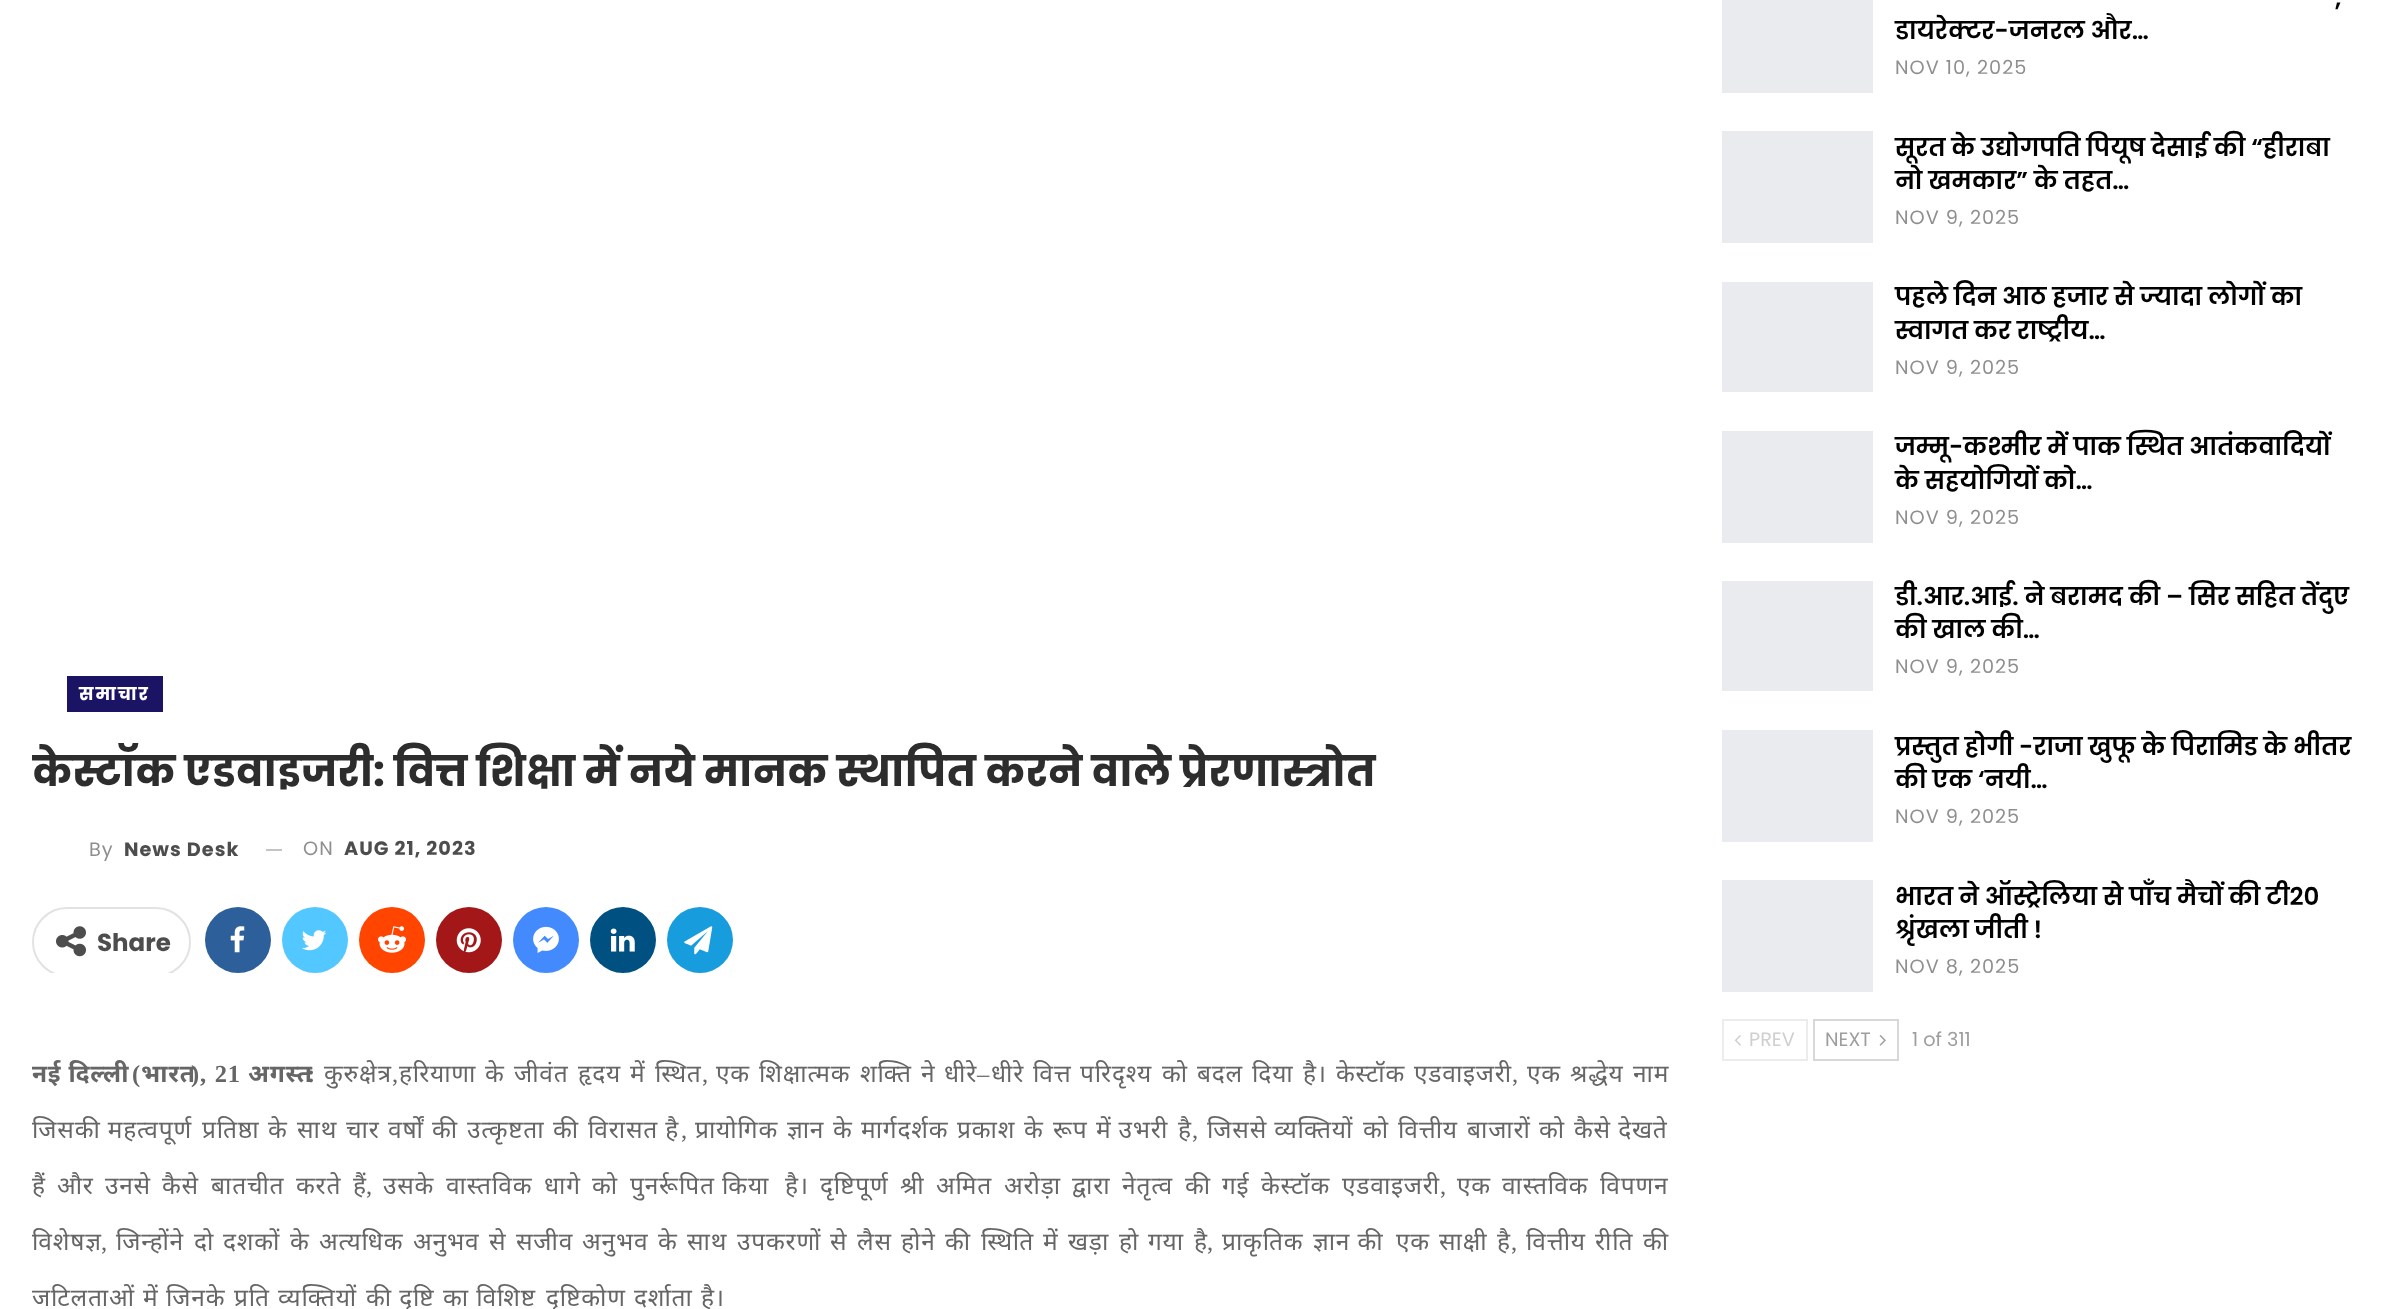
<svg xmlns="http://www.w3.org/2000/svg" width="2389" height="1309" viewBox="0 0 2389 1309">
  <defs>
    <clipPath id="clip1"><rect x="32" y="676" width="1638" height="196"/></clipPath>
    <clipPath id="clip2"><rect x="32" y="907" width="1638" height="66"/></clipPath>
  </defs>
  <rect width="100%" height="100%" fill="rgb(255,255,255)"/>
  <rect x="67" y="676" width="96" height="36" fill="rgb(27,20,100)"/>
  <text x="79" y="700" font-family="Poppins" font-size="17.5" font-weight="bold" letter-spacing="2" fill="rgb(255,255,255)">समाचार</text>
  <g clip-path="url(#clip1)">
    <text x="32" y="786" font-family="Poppins" font-size="42" font-weight="bold" fill="rgb(45,45,45)">केस्टॉक एडवाइजरी: वित्त शिक्षा में नये मानक स्थापित करने वाले प्रेरणास्त्रोत</text>
  </g>
  <text x="89" y="856" font-family="Poppins" font-size="19.25" letter-spacing="1" fill="rgb(143,143,143)">By</text>
  <text x="124" y="856" font-family="Poppins" font-size="19.25" font-weight="bold" letter-spacing="1" fill="rgb(77,77,77)">News Desk</text>
  <rect x="266" y="849" width="16" height="2" fill="rgb(196,196,196)"/>
  <text x="303" y="855" font-family="Poppins" font-size="19.25" letter-spacing="1" fill="rgb(143,143,143)">ON</text>
  <text x="344" y="855" font-family="Poppins" font-size="19.25" font-weight="bold" letter-spacing="1" fill="rgb(77,77,77)">AUG 21, 2023</text>
  <g clip-path="url(#clip2)">
    <rect x="33" y="908" width="157" height="68" rx="34" fill="none" stroke="rgb(226,226,226)" stroke-width="2"/>
  </g>
  <image x="56" y="926" width="30" height="31" href="pic1.png"/>
  <text x="97" y="951" font-family="Poppins" font-size="24.5" font-weight="bold" fill="rgb(77,77,77)">Share</text>
  <circle cx="238" cy="940" r="33" fill="rgb(45,95,154)"/>
  <image x="230" y="926" width="15" height="27" href="pic2.png"/>
  <circle cx="315" cy="940" r="33" fill="rgb(83,199,255)"/>
  <image x="301" y="930" width="26" height="21" href="pic3.png"/>
  <circle cx="392" cy="940" r="33" fill="rgb(255,69,0)"/>
  <image x="378" y="926" width="28" height="27" href="pic4.png"/>
  <circle cx="469" cy="940" r="33" fill="rgb(164,23,25)"/>
  <image x="456" y="928" width="25" height="25" href="pic5.png"/>
  <circle cx="546" cy="940" r="33" fill="rgb(68,138,255)"/>
  <image x="533" y="926" width="26" height="27" href="pic6.png"/>
  <circle cx="623" cy="940" r="33" fill="rgb(0,81,130)"/>
  <image x="610" y="928" width="25" height="24" href="pic7.png"/>
  <circle cx="700" cy="940" r="33" fill="rgb(23,156,222)"/>
  <image x="684" y="926" width="29" height="29" href="pic8.png"/>
  <text x="32" y="1082" font-family="Noto Sans" font-size="24.5" font-weight="bold" letter-spacing="0.8" fill="rgb(102,102,102)">नई दिल्ली</text>
  <text x="132" y="1082" font-family="Liberation Serif" font-size="24.5" font-weight="bold" letter-spacing="0.8" fill="rgb(102,102,102)">(</text>
  <text x="141" y="1082" font-family="Noto Sans" font-size="24.5" font-weight="bold" letter-spacing="0.8" fill="rgb(102,102,102)">भारत</text>
  <text x="191" y="1082" word-spacing="1" font-family="Liberation Serif" font-size="24.5" font-weight="bold" letter-spacing="0.8" fill="rgb(102,102,102)">), 21</text>
  <text x="248" y="1082" font-family="Noto Sans" font-size="24.5" font-weight="bold" letter-spacing="0.8" fill="rgb(102,102,102)">अगस्त</text>
  <text x="307" y="1082" font-family="Liberation Serif" font-size="24.5" font-weight="bold" letter-spacing="0.8" fill="rgb(102,102,102)">:</text>
  <g font-family="Noto Sans" font-size="24.5" letter-spacing="0.8" fill="rgb(102,102,102)">
    <text x="324" y="1082">कुरुक्षेत्र</text>
    <text x="399" y="1082">हरियाणा</text>
    <text x="485" y="1082">के</text>
    <text x="514" y="1082">जीवंत</text>
    <text x="578" y="1082">हृदय</text>
    <text x="630" y="1082">में</text>
    <text x="655" y="1082">स्थित</text>
    <text x="716" y="1082">एक</text>
    <text x="759" y="1082">शिक्षात्मक</text>
    <text x="860" y="1082">शक्ति</text>
    <text x="921" y="1082">ने</text>
    <text x="944" y="1082">धीरे</text>
  </g>
  <text x="977" y="1082" font-family="Liberation Serif" font-size="24.5" letter-spacing="0.8" fill="rgb(102,102,102)">–</text>
  <g font-family="Noto Sans" font-size="24.5" letter-spacing="0.8" fill="rgb(102,102,102)">
    <text x="991" y="1082">धीरे</text>
    <text x="1033" y="1082">वित्त</text>
    <text x="1080" y="1082">परिदृश्य</text>
    <text x="1162" y="1082">को</text>
    <text x="1197" y="1082">बदल</text>
    <text x="1252" y="1082">दिया</text>
    <text x="1303" y="1082">है।</text>
    <text x="1336" y="1082">केस्टॉक</text>
    <text x="1414" y="1082">एडवाइजरी</text>
    <text x="1527" y="1082">एक</text>
    <text x="1570" y="1082">श्रद्धेय</text>
    <text x="1633" y="1082">नाम</text>
  </g>
  <g font-family="Liberation Serif" font-size="24.5" letter-spacing="0.8" fill="rgb(102,102,102)">
    <text x="392" y="1082">,</text>
    <text x="702" y="1082">,</text>
    <text x="1512" y="1082">,</text>
  </g>
  <g font-family="Noto Sans" font-size="24.5" letter-spacing="0.8" fill="rgb(102,102,102)">
    <text x="32" y="1138">जिसकी महत्वपूर्ण</text>
    <text x="202" y="1138">प्रतिष्ठा</text>
    <text x="268" y="1138">के</text>
    <text x="297" y="1138">साथ</text>
    <text x="346" y="1138">चार</text>
    <text x="388" y="1138">वर्षों</text>
    <text x="432" y="1138">की</text>
    <text x="467" y="1138">उत्कृष्टता</text>
    <text x="553" y="1138">की</text>
    <text x="588" y="1138">विरासत है</text>
  </g>
  <text x="681" y="1138" font-family="Liberation Serif" font-size="24.5" letter-spacing="0.8" fill="rgb(102,102,102)">,</text>
  <g font-family="Noto Sans" font-size="24.5" letter-spacing="0.8" fill="rgb(102,102,102)">
    <text x="695" y="1138">प्रायोगिक</text>
    <text x="787" y="1138">ज्ञान</text>
    <text x="833" y="1138">के</text>
    <text x="861" y="1138">मार्गदर्शक</text>
    <text x="957" y="1138">प्रकाश</text>
    <text x="1024" y="1138">के</text>
    <text x="1053" y="1138">रूप</text>
    <text x="1096" y="1138">में उभरी</text>
    <text x="1178" y="1138">है</text>
  </g>
  <text x="1192" y="1138" font-family="Liberation Serif" font-size="24.5" letter-spacing="0.8" fill="rgb(102,102,102)">,</text>
  <g font-family="Noto Sans" font-size="24.5" letter-spacing="0.8" fill="rgb(102,102,102)">
    <text x="1207" y="1138">जिससे व्यक्तियों</text>
    <text x="1363" y="1138">को</text>
    <text x="1398" y="1138">वित्तीय</text>
    <text x="1467" y="1138">बाजारों</text>
    <text x="1539" y="1138">को</text>
    <text x="1574" y="1138">कैसे देखते</text>
    <text x="32" y="1194">हैं</text>
    <text x="57" y="1194">और</text>
    <text x="105" y="1194">उनसे</text>
    <text x="162" y="1194">कैसे</text>
    <text x="211" y="1194">बातचीत</text>
    <text x="296" y="1194">करते</text>
    <text x="353" y="1194">हैं</text>
  </g>
  <text x="366" y="1194" font-family="Liberation Serif" font-size="24.5" letter-spacing="0.8" fill="rgb(102,102,102)">,</text>
  <g font-family="Noto Sans" font-size="24.5" letter-spacing="0.8" fill="rgb(102,102,102)">
    <text x="383" y="1194">उसके</text>
    <text x="446" y="1194">वास्तविक</text>
    <text x="544" y="1194">धागे</text>
    <text x="592" y="1194">को</text>
    <text x="630" y="1194">पुनर्रूपित किया</text>
    <text x="785" y="1194">है।</text>
    <text x="820" y="1194">दृष्टिपूर्ण</text>
    <text x="900" y="1194">श्री</text>
    <text x="936" y="1194">अमित</text>
    <text x="1004" y="1194">अरोड़ा</text>
    <text x="1072" y="1194">द्वारा</text>
    <text x="1122" y="1194">नेतृत्व</text>
    <text x="1185" y="1194">की</text>
    <text x="1222" y="1194">गई</text>
    <text x="1261" y="1194">केस्टॉक</text>
    <text x="1342" y="1194">एडवाइजरी</text>
  </g>
  <text x="1440" y="1194" font-family="Liberation Serif" font-size="24.5" letter-spacing="0.8" fill="rgb(102,102,102)">,</text>
  <g font-family="Noto Sans" font-size="24.5" letter-spacing="0.8" fill="rgb(102,102,102)">
    <text x="1457" y="1194">एक</text>
    <text x="1502" y="1194">वास्तविक</text>
    <text x="1600" y="1194">विपणन</text>
    <text x="32" y="1250">विशेषज्ञ</text>
  </g>
  <text x="101" y="1250" font-family="Liberation Serif" font-size="24.5" letter-spacing="0.8" fill="rgb(102,102,102)">,</text>
  <g font-family="Noto Sans" font-size="24.5" letter-spacing="0.8" fill="rgb(102,102,102)">
    <text x="116" y="1250">जिन्होंने</text>
    <text x="194" y="1250">दो</text>
    <text x="223" y="1250">दशकों</text>
    <text x="290" y="1250">के</text>
    <text x="319" y="1250">अत्यधिक</text>
    <text x="413" y="1250">अनुभव</text>
    <text x="489" y="1250">से</text>
    <text x="516" y="1250">सजीव</text>
    <text x="582" y="1250">अनुभव</text>
    <text x="658" y="1250">के</text>
    <text x="687" y="1250">साथ</text>
    <text x="737" y="1250">उपकरणों</text>
    <text x="830" y="1250">से</text>
    <text x="857" y="1250">लैस</text>
    <text x="901" y="1250">होने</text>
    <text x="945" y="1250">की</text>
    <text x="981" y="1250">स्थिति</text>
    <text x="1043" y="1250">में</text>
    <text x="1068" y="1250">खड़ा</text>
    <text x="1119" y="1250">हो</text>
    <text x="1148" y="1250">गया</text>
    <text x="1194" y="1250">है</text>
  </g>
  <text x="1207" y="1250" font-family="Liberation Serif" font-size="24.5" letter-spacing="0.8" fill="rgb(102,102,102)">,</text>
  <g font-family="Noto Sans" font-size="24.5" letter-spacing="0.8" fill="rgb(102,102,102)">
    <text x="1222" y="1250">प्राकृतिक</text>
    <text x="1313" y="1250">ज्ञान की</text>
    <text x="1396" y="1250">एक</text>
    <text x="1439" y="1250">साक्षी</text>
    <text x="1497" y="1250">है</text>
  </g>
  <text x="1511" y="1250" font-family="Liberation Serif" font-size="24.5" letter-spacing="0.8" fill="rgb(102,102,102)">,</text>
  <g font-family="Noto Sans" font-size="24.5" letter-spacing="0.8" fill="rgb(102,102,102)">
    <text x="1526" y="1250">वित्तीय</text>
    <text x="1595" y="1250">रीति</text>
    <text x="1643" y="1250">की</text>
    <text x="32" y="1306">जटिलताओं</text>
    <text x="143" y="1306">में</text>
    <text x="166" y="1306">जिनके</text>
    <text x="234" y="1306">प्रति</text>
    <text x="278" y="1306">व्यक्तियों</text>
    <text x="366" y="1306">की दृष्टि</text>
    <text x="443" y="1306">का विशिष्ट</text>
    <text x="546" y="1306">दृष्टिकोण</text>
    <text x="634" y="1306">दर्शाता</text>
    <text x="701" y="1306">है।</text>
  </g>
  <rect x="1722" y="0" width="151" height="93" fill="rgb(233,235,238)"/>
  <g font-family="Poppins" font-size="24.5" font-weight="600" fill="rgb(1,1,1)">
    <text x="2335" y="6">,</text>
    <text x="1895" y="39">डायरेक्टर-जनरल और…</text>
  </g>
  <text x="1895" y="74" font-family="Poppins" font-size="19.25" letter-spacing="1" fill="rgb(143,143,143)">NOV 10, 2025</text>
  <rect x="1722" y="131" width="151" height="112" fill="rgb(233,235,238)"/>
  <g font-family="Poppins" font-size="24.5" font-weight="600" fill="rgb(1,1,1)">
    <text>
      <tspan x="1895" y="156">सूरत के उद्योगपति पियूष देसाई की “हीराबा</tspan>
      <tspan x="1895" y="189">नो खमकार” के तहत…</tspan>
    </text>
  </g>
  <text x="1895" y="224" font-family="Poppins" font-size="19.25" letter-spacing="1" fill="rgb(143,143,143)">NOV 9, 2025</text>
  <rect x="1722" y="282" width="151" height="110" fill="rgb(233,235,238)"/>
  <g font-family="Poppins" font-size="24.5" font-weight="600" fill="rgb(1,1,1)">
    <text>
      <tspan x="1895" y="305">पहले दिन आठ हजार से ज्यादा लोगों का</tspan>
      <tspan x="1895" y="339">स्वागत कर राष्ट्रीय…</tspan>
    </text>
  </g>
  <text x="1895" y="374" font-family="Poppins" font-size="19.25" letter-spacing="1" fill="rgb(143,143,143)">NOV 9, 2025</text>
  <rect x="1722" y="431" width="151" height="112" fill="rgb(233,235,238)"/>
  <g font-family="Poppins" font-size="24.5" font-weight="600" fill="rgb(1,1,1)">
    <text>
      <tspan x="1895" y="455">जम्मू-कश्मीर में पाक स्थित आतंकवादियों</tspan>
      <tspan x="1895" y="489">के सहयोगियों को…</tspan>
    </text>
  </g>
  <text x="1895" y="524" font-family="Poppins" font-size="19.25" letter-spacing="1" fill="rgb(143,143,143)">NOV 9, 2025</text>
  <rect x="1722" y="581" width="151" height="110" fill="rgb(233,235,238)"/>
  <g font-family="Poppins" font-size="24.5" font-weight="600" fill="rgb(1,1,1)">
    <text>
      <tspan x="1895" y="605">डी.आर.आई. ने बरामद की – सिर सहित तेंदुए</tspan>
      <tspan x="1895" y="638">की खाल की…</tspan>
    </text>
  </g>
  <text x="1895" y="673" font-family="Poppins" font-size="19.25" letter-spacing="1" fill="rgb(143,143,143)">NOV 9, 2025</text>
  <rect x="1722" y="730" width="151" height="112" fill="rgb(233,235,238)"/>
  <g font-family="Poppins" font-size="24.5" font-weight="600" fill="rgb(1,1,1)">
    <text>
      <tspan x="1895" y="755">प्रस्तुत होगी -राजा खुफू के पिरामिड के भीतर</tspan>
      <tspan x="1895" y="788">की एक ‘नयी…</tspan>
    </text>
  </g>
  <text x="1895" y="823" font-family="Poppins" font-size="19.25" letter-spacing="1" fill="rgb(143,143,143)">NOV 9, 2025</text>
  <rect x="1722" y="880" width="151" height="112" fill="rgb(233,235,238)"/>
  <g font-family="Poppins" font-size="24.5" font-weight="600" fill="rgb(1,1,1)">
    <text>
      <tspan x="1895" y="905">भारत ने ऑस्ट्रेलिया से पाँच मैचों की टी20</tspan>
      <tspan x="1895" y="938">श्रृंखला जीती !</tspan>
    </text>
  </g>
  <text x="1895" y="973" font-family="Poppins" font-size="19.25" letter-spacing="1" fill="rgb(143,143,143)">NOV 8, 2025</text>
  <rect x="1723" y="1020" width="84" height="40" fill="none" stroke="rgb(236,236,236)" stroke-width="2"/>
  <image x="1734" y="1035" width="7" height="11" href="pic9.png"/>
  <text x="1749" y="1046" font-family="Poppins" font-size="19.25" fill="rgb(207,207,207)">PREV</text>
  <rect x="1814" y="1020" width="84" height="40" fill="none" stroke="rgb(216,216,216)" stroke-width="2"/>
  <text x="1825" y="1046" font-family="Poppins" font-size="19.25" fill="rgb(158,158,158)">NEXT</text>
  <image x="1879" y="1035" width="7" height="11" href="pic10.png"/>
  <text x="1912" y="1046" font-family="Poppins" font-size="19.25" fill="rgb(158,158,158)">1 of 311</text>
</svg>
